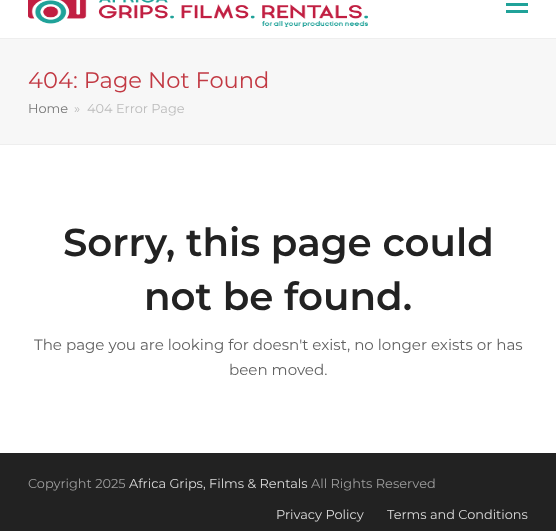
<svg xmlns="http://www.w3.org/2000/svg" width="556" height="531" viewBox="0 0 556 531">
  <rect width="100%" height="100%" fill="rgb(255,255,255)"/>
  <image x="28" y="0" width="340" height="27" href="pic1.png"/>
  <rect x="506" y="3" width="22" height="3" fill="rgb(32,162,153)"/>
  <rect x="506" y="10" width="22" height="3" fill="rgb(32,162,153)"/>
  <rect x="0" y="39" width="556" height="105" fill="rgb(247,247,247)"/>
  <rect x="0" y="38" width="556" height="1" fill="rgb(238,238,238)"/>
  <rect x="0" y="144" width="556" height="1" fill="rgb(238,238,238)"/>
  <text x="28" y="88" font-family="Montserrat" font-size="22.6" fill="rgb(194,57,67)">404: Page Not Found</text>
  <text x="28" y="113" font-family="Montserrat" font-size="12.9" fill="rgb(119,119,119)">Home</text>
  <g font-family="Montserrat" font-size="12.9" fill="rgb(188,188,188)">
    <text x="74" y="113">»</text>
    <text x="87" y="113">404 Error Page</text>
  </g>
  <g font-family="Montserrat" font-size="38.75" font-weight="600" fill="rgb(34,34,34)">
    <text x="63" y="256">Sorry, this page could</text>
    <text x="144" y="310">not be found.</text>
  </g>
  <g font-family="Montserrat" font-size="15.1" fill="rgb(97,97,97)">
    <text x="34" y="350">The page you are looking for doesn't exist, no longer exists or has</text>
    <text x="229" y="375">been moved.</text>
  </g>
  <rect x="0" y="453" width="556" height="78" fill="rgb(34,34,34)"/>
  <text x="28" y="488" font-family="Montserrat" font-size="12.9" fill="rgb(158,158,158)">Copyright 2025</text>
  <text x="129" y="488" font-family="Montserrat" font-size="12.9" fill="rgb(219,219,219)">Africa Grips, Films &amp; Rentals</text>
  <text x="311" y="488" font-family="Montserrat" font-size="12.9" fill="rgb(158,158,158)">All Rights Reserved</text>
  <g font-family="Montserrat" font-size="12.9" fill="rgb(219,219,219)">
    <text x="276" y="519">Privacy Policy</text>
    <text x="387" y="519">Terms and Conditions</text>
  </g>
</svg>
